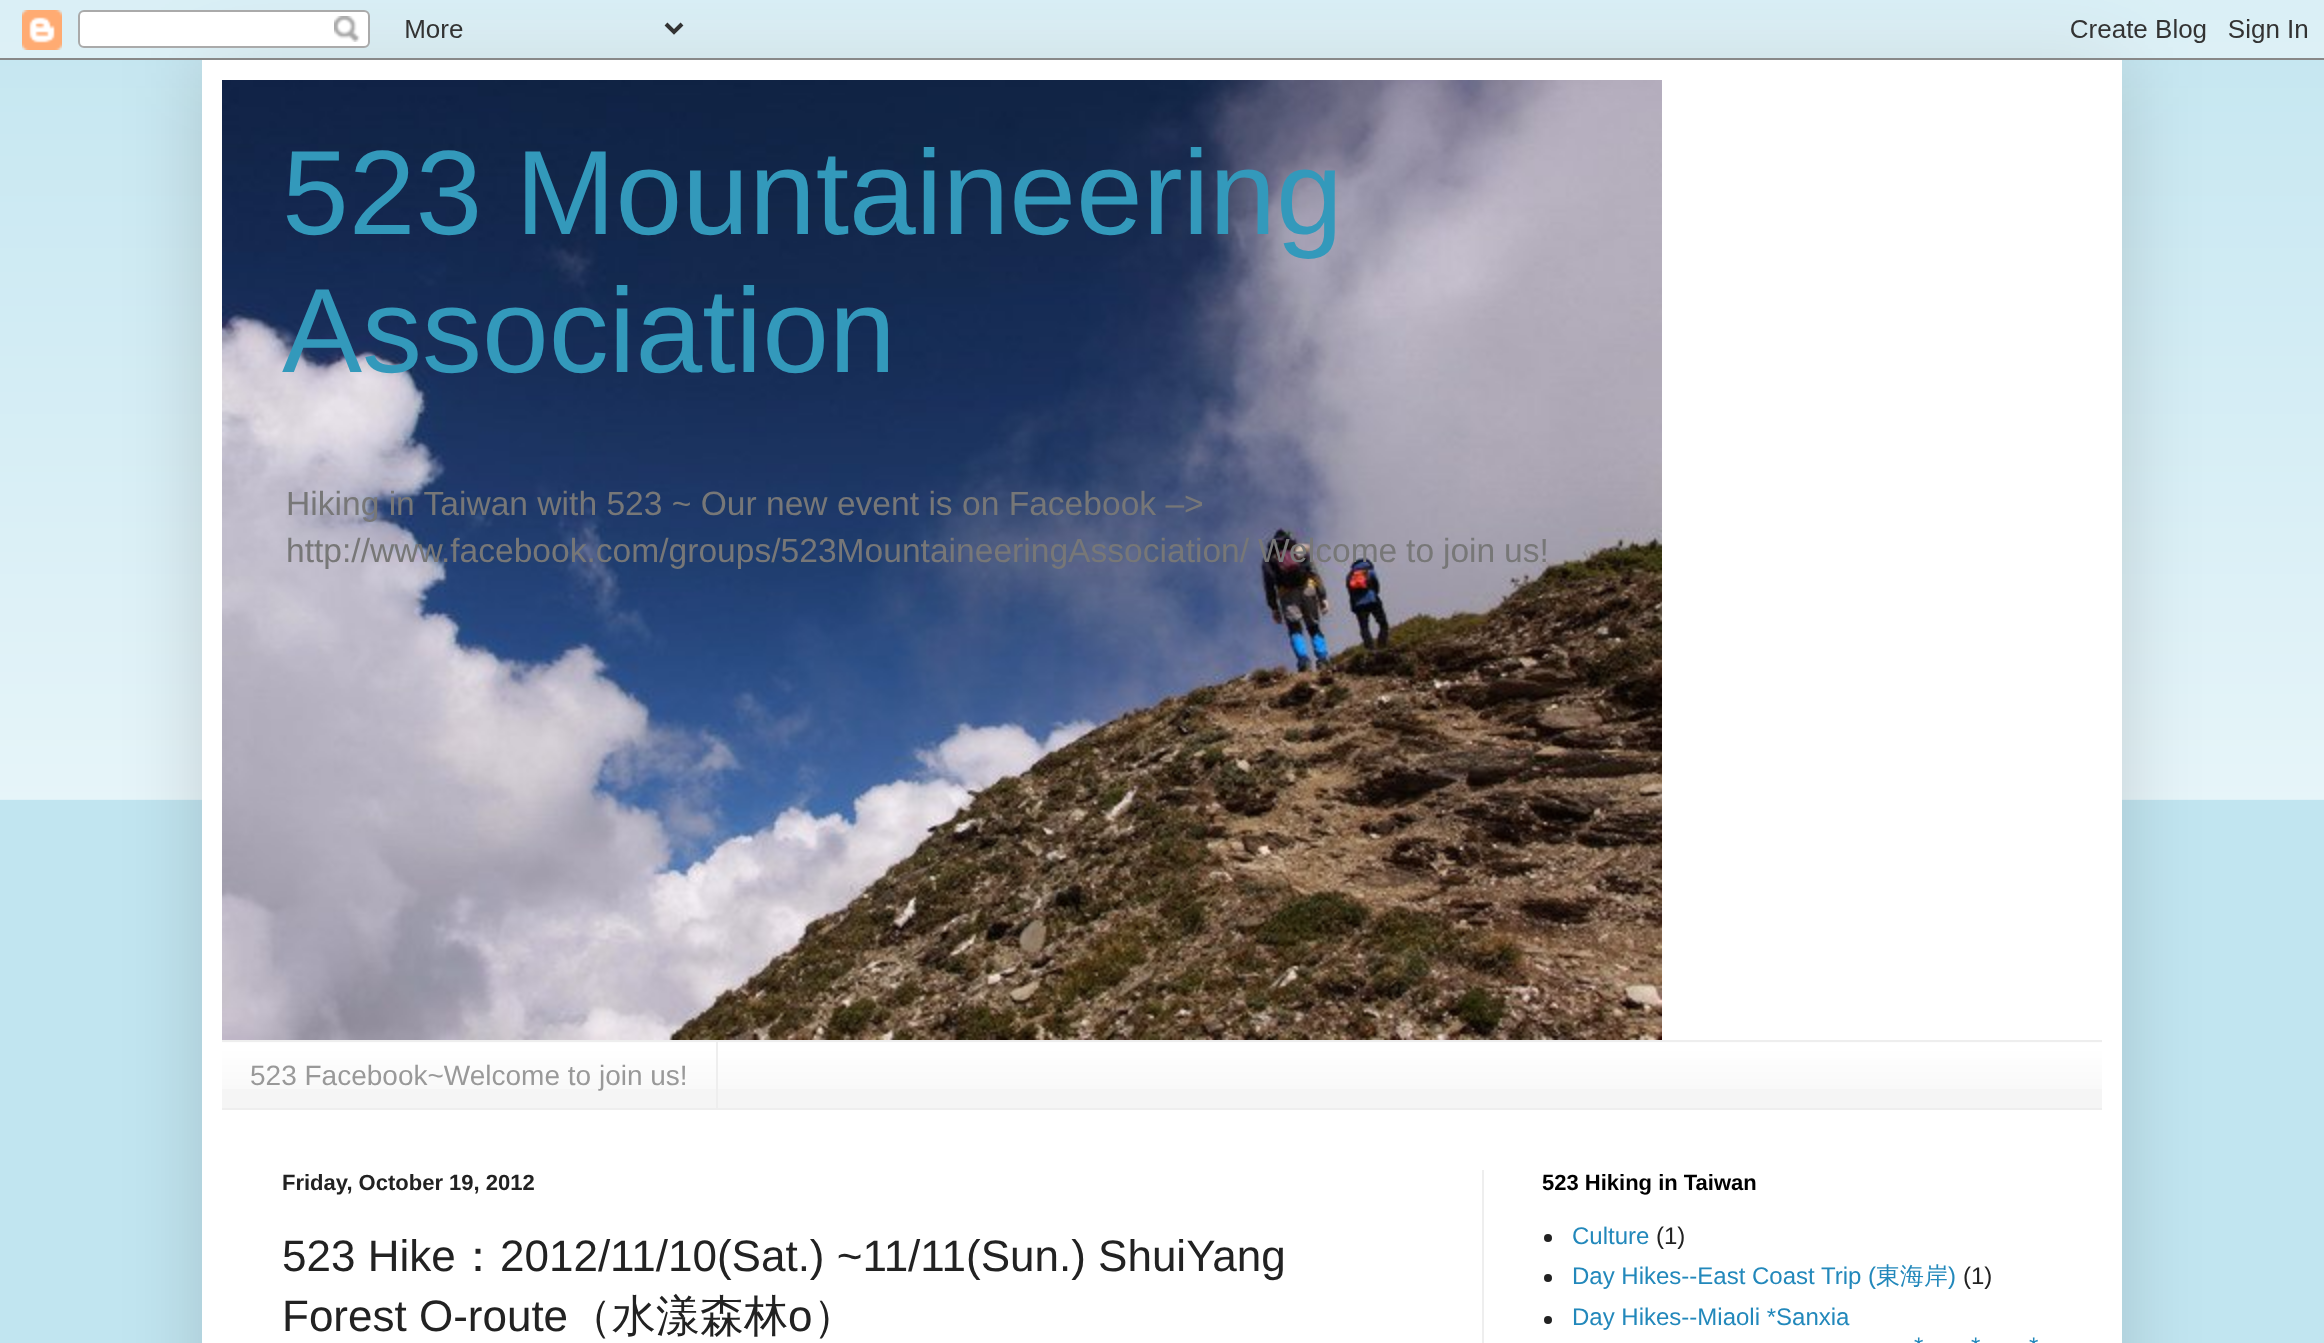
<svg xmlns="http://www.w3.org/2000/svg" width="2324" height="1343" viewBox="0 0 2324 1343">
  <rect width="100%" height="100%" fill="rgb(193,229,240)"/>
  <image x="0" y="20" width="2324" height="780" href="pic2.png"/>
  <rect x="202" y="60" width="1920" height="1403" fill="rgba(0,0,0,0.15)" filter="blur(40px)"/>
  <image x="0" y="0" width="2324" height="60" href="pic1.png"/>
  <rect x="202" y="60" width="1920" height="1283" fill="rgb(255,255,255)"/>
  <image x="222" y="80" width="1440" height="960" href="pic3.png"/>
  <g font-family="Liberation Sans" font-size="120" fill="rgb(51,153,187)">
    <text>
      <tspan x="282" y="234">523 Mountaineering</tspan>
      <tspan x="282" y="372">Association</tspan>
    </text>
  </g>
  <g font-family="Liberation Sans" font-size="33.6" fill="rgb(119,119,119)">
    <text>
      <tspan x="286" y="515">Hiking in Taiwan with 523 ~ Our new event is on Facebook –&gt;</tspan>
      <tspan x="286" y="562" word-spacing="-0.5">http://www.facebook.com/groups/523MountaineeringAssociation/ Welcome to join us!</tspan>
    </text>
  </g>
  <rect x="222" y="1042" width="1880" height="66" fill="rgb(245,245,245)"/>
  <image x="222" y="1042" width="1880" height="47" href="pic4.png"/>
  <rect x="222" y="1040" width="1880" height="2" fill="rgb(238,238,238)"/>
  <rect x="222" y="1108" width="1880" height="2" fill="rgb(238,238,238)"/>
  <rect x="716" y="1042" width="2" height="66" fill="rgb(238,238,238)"/>
  <text x="250" y="1085" font-family="Liberation Sans" font-size="28" fill="rgb(153,153,153)">523 Facebook~Welcome to join us!</text>
  <rect x="1482" y="1170" width="2" height="173" fill="rgb(238,238,238)"/>
  <text x="282" y="1190" font-family="Liberation Sans" font-size="22" font-weight="bold" fill="rgb(34,34,34)">Friday, October 19, 2012</text>
  <text x="282" y="1271" font-family="Liberation Sans" font-size="44" fill="rgb(34,34,34)">523 Hike</text>
  <text x="456" y="1271" font-family="WenQuanYi Zen Hei" font-size="44" font-weight="500" fill="rgb(34,34,34)">：</text>
  <g font-family="Liberation Sans" font-size="44" fill="rgb(34,34,34)">
    <text x="500" y="1271">2012/11/10(Sat.) ~11/11(Sun.) ShuiYang</text>
    <text x="282" y="1331">Forest O-route</text>
  </g>
  <text x="568" y="1331" font-family="WenQuanYi Zen Hei" font-size="44" font-weight="500" fill="rgb(34,34,34)">（水漾森林</text>
  <text x="788" y="1331" font-family="Liberation Sans" font-size="44" fill="rgb(34,34,34)">o</text>
  <text x="813" y="1331" font-family="WenQuanYi Zen Hei" font-size="44" font-weight="500" fill="rgb(34,34,34)">）</text>
  <text x="1542" y="1190" font-family="Liberation Sans" font-size="22" font-weight="bold" fill="rgb(0,0,0)">523 Hiking in Taiwan</text>
  <circle cx="1548" cy="1238" r="4" fill="rgb(34,34,34)"/>
  <text x="1572" y="1244" font-family="Liberation Sans" font-size="24" fill="rgb(34,136,187)">Culture</text>
  <text x="1656" y="1244" font-family="Liberation Sans" font-size="24" fill="rgb(34,34,34)">(1)</text>
  <circle cx="1548" cy="1278" r="4" fill="rgb(34,34,34)"/>
  <text x="1572" y="1284" font-family="Liberation Sans" font-size="24" fill="rgb(34,136,187)">Day Hikes--East Coast Trip (</text>
  <text x="1876" y="1284" font-family="WenQuanYi Zen Hei" font-size="24" font-weight="500" fill="rgb(34,136,187)">東海岸</text>
  <text x="1948" y="1284" font-family="Liberation Sans" font-size="24" fill="rgb(34,136,187)">)</text>
  <text x="1963" y="1284" font-family="Liberation Sans" font-size="24" fill="rgb(34,34,34)">(1)</text>
  <circle cx="1548" cy="1320" r="4" fill="rgb(34,34,34)"/>
  <g font-family="Liberation Sans" font-size="24" fill="rgb(34,136,187)">
    <text x="1572" y="1325">Day Hikes--Miaoli *Sanxia</text>
    <text x="1914" y="1354">*</text>
    <text x="1971" y="1354">*</text>
    <text x="2029" y="1354">*</text>
  </g>
</svg>
